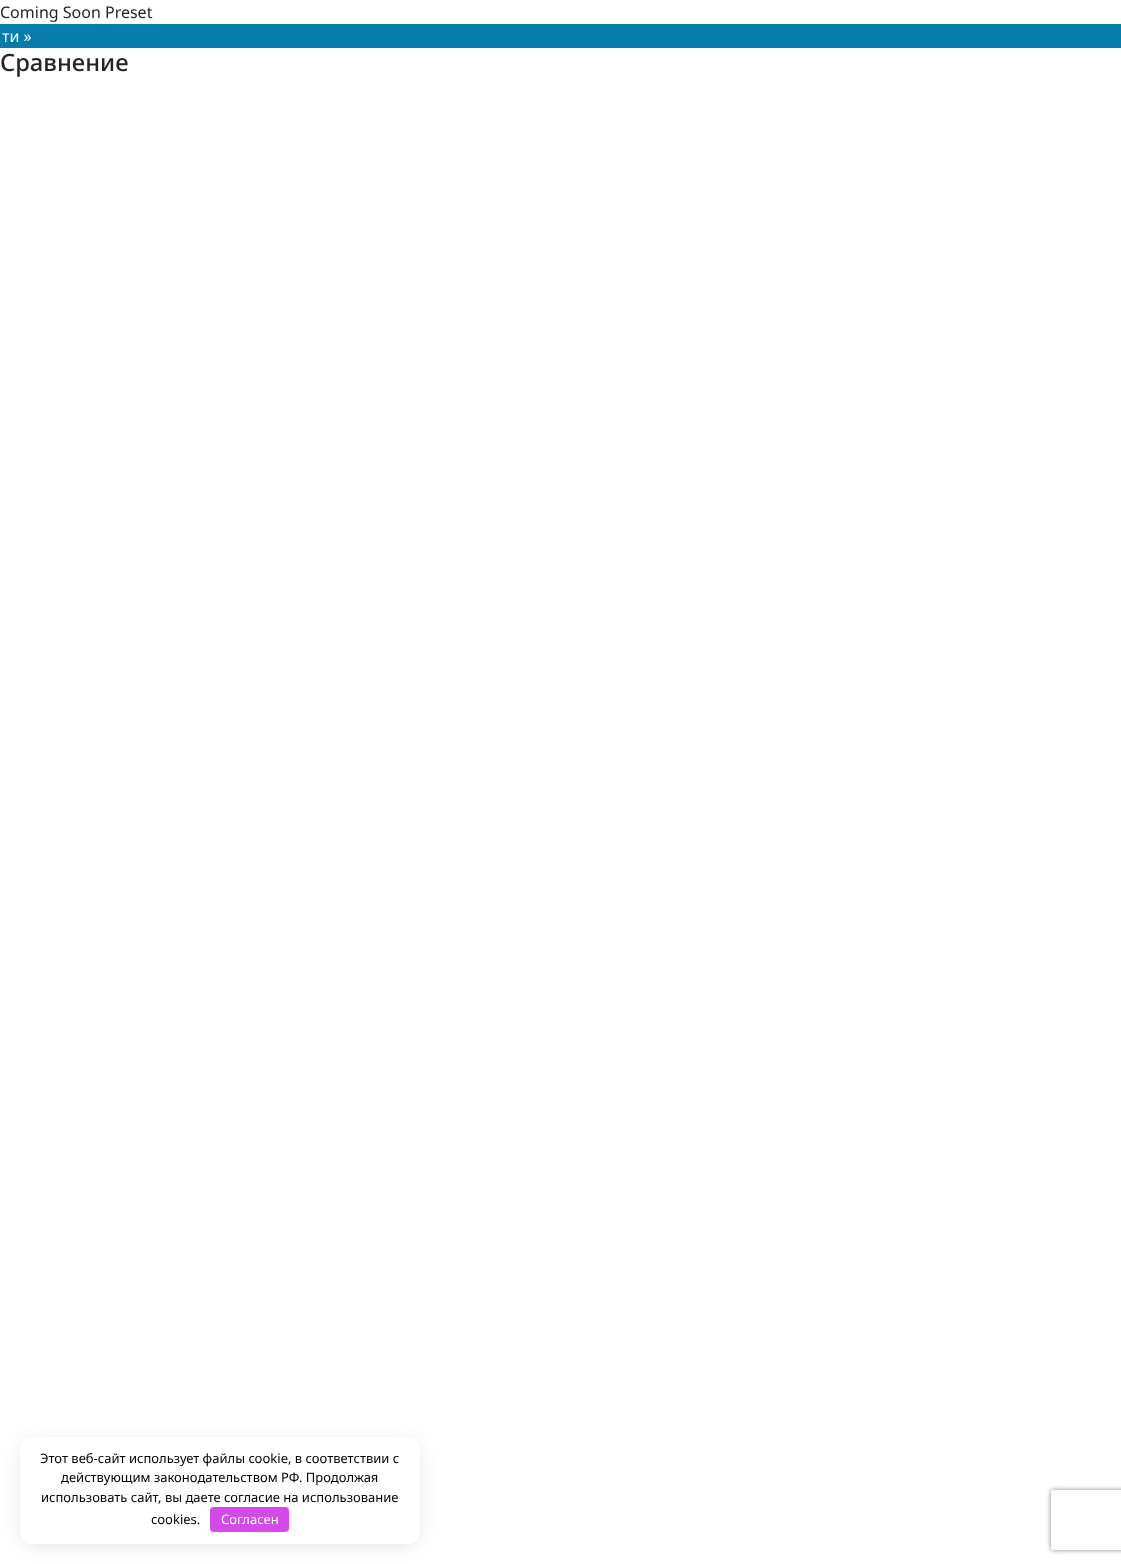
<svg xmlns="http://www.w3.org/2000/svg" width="1121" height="1564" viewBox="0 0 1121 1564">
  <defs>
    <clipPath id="clip1"><path d="M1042 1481H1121V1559H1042ZM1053 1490H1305C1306 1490 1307 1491 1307 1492V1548C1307 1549 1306 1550 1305 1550H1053C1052 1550 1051 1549 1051 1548V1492C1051 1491 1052 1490 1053 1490Z" clip-rule="evenodd"/></clipPath>
  </defs>
  <rect width="100%" height="100%" fill="rgb(255,255,255)"/>
  <text x="0" y="18" font-family="Noto Sans" font-size="16" fill="rgb(33,37,41)">Coming Soon Preset</text>
  <rect x="0" y="24" width="1121" height="24" fill="rgb(7,124,171)"/>
  <text x="2" y="42" font-family="Noto Sans" font-size="16" fill="rgb(255,255,255)">ти »</text>
  <text x="0" y="71" font-family="Noto Sans" font-size="23.75" font-weight="500" fill="rgb(33,37,41)">Сравнение</text>
  <rect x="25" y="1445" width="390" height="97" rx="7" fill="rgba(41,44,56,0.2)" filter="blur(10px)"/>
  <rect x="20" y="1437" width="400" height="107" rx="12" fill="rgb(255,255,255)"/>
  <g font-family="Noto Sans" font-size="13" fill="rgb(0,0,0)">
    <text x="40" y="1463">Этот веб-сайт использует файлы cookie, в соответствии с</text>
    <text x="61" y="1482">действующим законодательством РФ. Продолжая</text>
    <text x="41" y="1502">использовать сайт, вы даете согласие на использование</text>
    <text x="151" y="1524">cookies.</text>
  </g>
  <rect x="210" y="1507" width="79" height="25" rx="4" fill="rgb(211,74,232)"/>
  <text x="221" y="1524" font-family="Noto Sans" font-size="13" fill="rgb(255,255,255)">Согласен</text>
  <g clip-path="url(#clip1)">
    <rect x="1051" y="1490" width="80" height="60" rx="2" fill="rgb(128,128,128)" filter="blur(2.5px)"/>
  </g>
</svg>
